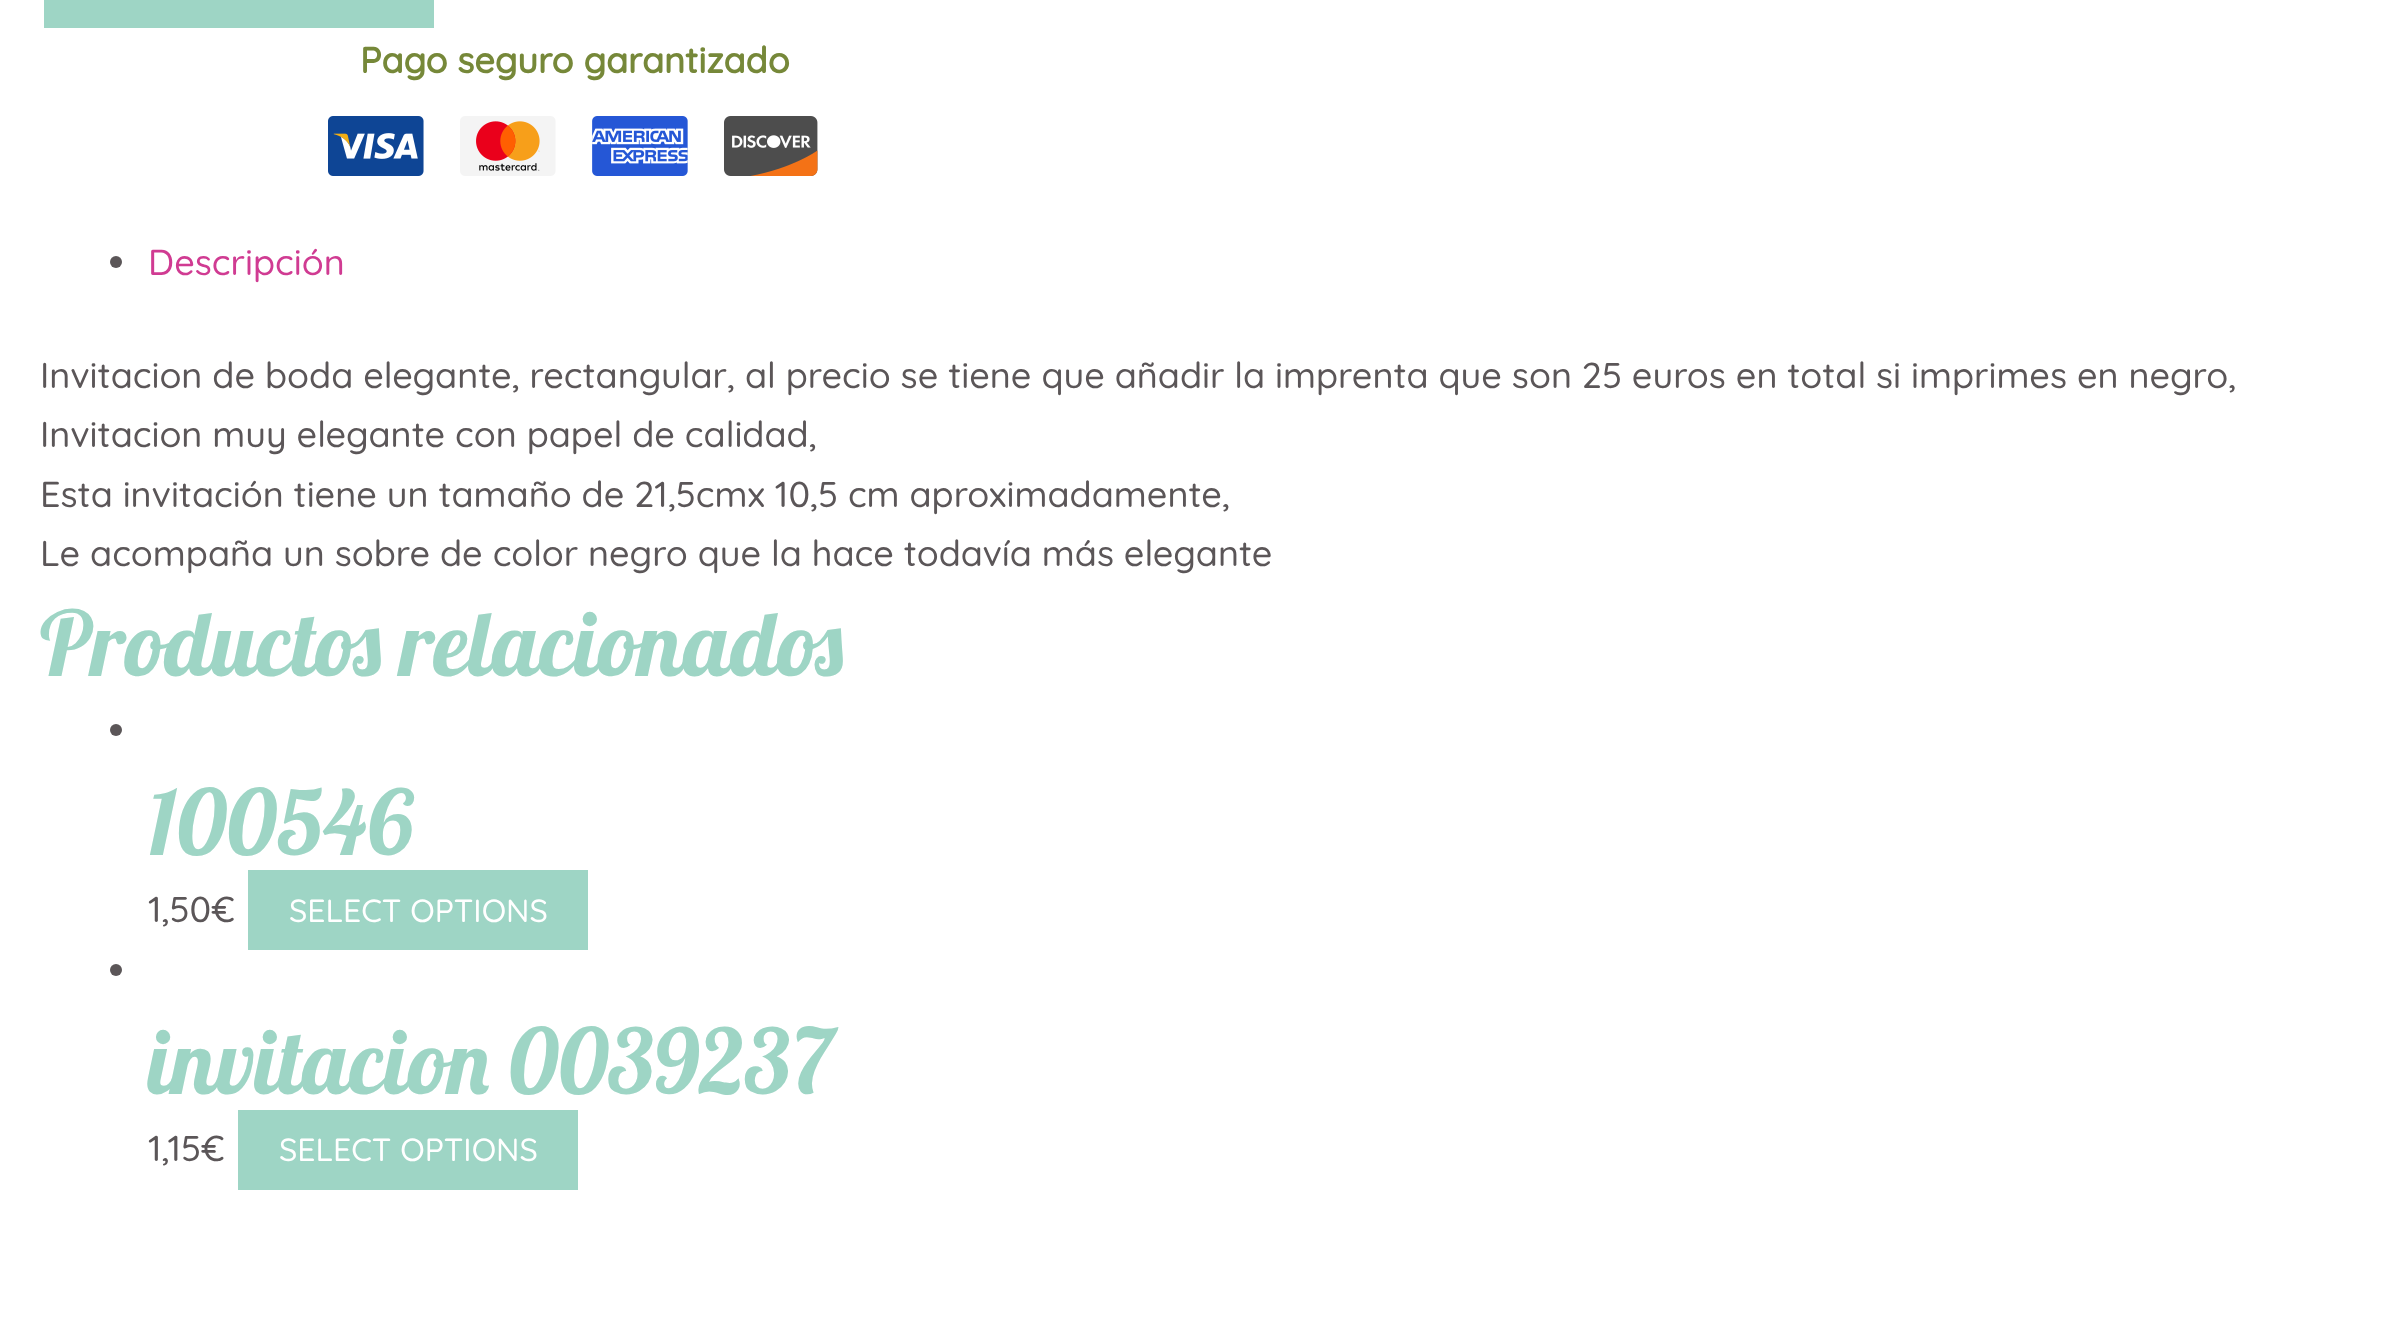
<svg xmlns="http://www.w3.org/2000/svg" width="2404" height="1324" viewBox="0 0 2404 1324">
  <rect width="100%" height="100%" fill="rgb(255,255,255)"/>
  <rect x="44" y="0" width="390" height="28" fill="rgb(158,213,197)"/>
  <text x="360" y="73" font-family="Quicksand" font-size="36" font-weight="bold" fill="rgb(118,136,57)">Pago seguro garantizado</text>
  <image x="328" y="116" width="96" height="60" href="pic1.png"/>
  <image x="460" y="116" width="96" height="60" href="pic2.png"/>
  <image x="592" y="116" width="96" height="60" href="pic3.png"/>
  <image x="724" y="116" width="94" height="60" href="pic4.png"/>
  <circle cx="116" cy="262" r="6" fill="rgb(91,86,88)"/>
  <text x="148" y="275" font-family="Quicksand" font-size="36" font-weight="300" fill="rgb(208,59,146)">Descripción</text>
  <g font-family="Quicksand" font-size="36" font-weight="300" fill="rgb(91,86,88)">
    <text>
      <tspan x="40" y="388">Invitacion de boda elegante, rectangular, al precio se tiene que añadir la imprenta que son 25 euros en total si imprimes en negro,</tspan>
      <tspan x="40" y="447">Invitacion muy elegante con papel de calidad,</tspan>
      <tspan x="40" y="507">Esta invitación tiene un tamaño de 21,5cmx 10,5 cm aproximadamente,</tspan>
      <tspan x="40" y="566">Le acompaña un sobre de color negro que la hace todavía más elegante</tspan>
    </text>
  </g>
  <text x="40" y="676" font-family="Lobster" font-size="90" fill="rgb(158,213,197)">Productos relacionados</text>
  <circle cx="116" cy="730" r="6" fill="rgb(91,86,88)"/>
  <text x="148" y="855" font-family="Lobster" font-size="90" fill="rgb(158,213,197)">100546</text>
  <text x="148" y="922" font-family="Quicksand" font-size="36" font-weight="300" fill="rgb(91,86,88)">1,50€</text>
  <rect x="248" y="870" width="340" height="80" fill="rgb(158,213,197)"/>
  <text x="289" y="922" font-family="Quicksand" font-size="32" font-weight="300" fill="rgb(255,255,255)">SELECT OPTIONS</text>
  <circle cx="116" cy="970" r="6" fill="rgb(91,86,88)"/>
  <text x="148" y="1094" font-family="Lobster" font-size="90" fill="rgb(158,213,197)">invitacion 0039237</text>
  <text x="148" y="1161" font-family="Quicksand" font-size="36" font-weight="300" fill="rgb(91,86,88)">1,15€</text>
  <rect x="238" y="1110" width="340" height="80" fill="rgb(158,213,197)"/>
  <text x="279" y="1161" font-family="Quicksand" font-size="32" font-weight="300" fill="rgb(255,255,255)">SELECT OPTIONS</text>
</svg>
